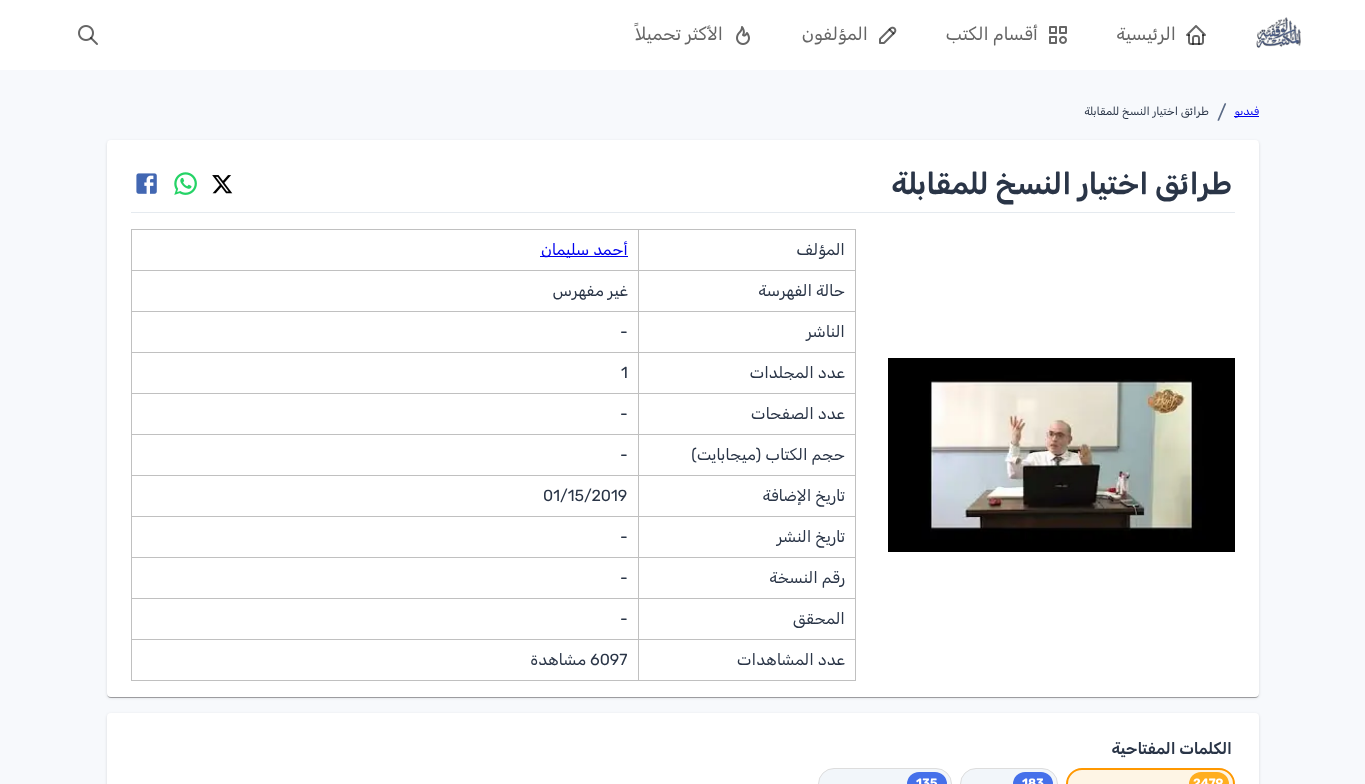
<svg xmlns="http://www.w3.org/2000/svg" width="1365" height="784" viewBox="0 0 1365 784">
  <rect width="100%" height="100%" fill="rgb(247,249,252)"/>
  <rect x="0" y="0" width="1365" height="70" fill="rgb(255,255,255)"/>
  <image x="1256" y="17" width="45" height="31" href="pic1.png"/>
  <image x="1186" y="25" width="20" height="20" href="pic2.png"/>
  <text x="1176" y="40" font-family="Rubik" font-size="18" direction="rtl" fill="rgb(102,102,102)">الرئيسية</text>
  <image x="1049" y="26" width="18" height="18" href="pic3.png"/>
  <text x="1038" y="40" font-family="Rubik" font-size="18" direction="rtl" fill="rgb(102,102,102)">أقسام الكتب</text>
  <image x="879" y="26" width="18" height="18" href="pic4.png"/>
  <text x="868" y="40" font-family="Rubik" font-size="18" direction="rtl" fill="rgb(102,102,102)">المؤلفون</text>
  <image x="736" y="26" width="14" height="19" href="pic5.png"/>
  <text x="723" y="40" font-family="Rubik" font-size="18" direction="rtl" fill="rgb(102,102,102)">الأكثر تحميلاً</text>
  <image x="78" y="25" width="20" height="20" href="pic6.png"/>
  <rect x="1234" y="116" width="25" height="1" fill="rgb(0,0,238)"/>
  <text x="1259" y="115" font-family="Rubik" font-size="11.25" direction="rtl" fill="rgb(0,0,238)">فيديو</text>
  <text x="1217" y="119" font-family="Rubik" font-size="20" fill="rgb(90,106,133)">/</text>
  <text x="1209" y="115" font-family="Rubik" font-size="11.25" direction="rtl" fill="rgb(42,53,71)">طرائق اختيار النسخ للمقابلة</text>
  <rect x="107" y="141" width="1152" height="557" rx="4" fill="rgba(0,0,0,0.12)" filter="blur(1.5px)"/>
  <rect x="107" y="141" width="1152" height="557" rx="4" fill="rgba(0,0,0,0.14)" filter="blur(0.5px)"/>
  <rect x="108" y="143" width="1150" height="555" rx="3" fill="rgba(0,0,0,0.2)" filter="blur(0.5px)"/>
  <rect x="107" y="140" width="1152" height="557" rx="4" fill="rgb(255,255,255)"/>
  <text x="1232" y="194" font-family="Rubik" font-size="30" font-weight="600" direction="rtl" fill="rgb(42,53,71)">طرائق اختيار النسخ للمقابلة</text>
  <image x="212" y="175" width="21" height="19" href="pic7.png"/>
  <image x="174" y="172" width="23" height="23" href="pic8.png"/>
  <image x="136" y="173" width="21" height="21" href="pic9.png"/>
  <rect x="131" y="212" width="1104" height="1" fill="rgb(229,234,239)"/>
  <image x="888" y="358" width="347" height="194" href="pic10.png"/>
  <rect x="131" y="229" width="508" height="1" fill="rgb(192,192,192)"/>
  <rect x="131" y="270" width="508" height="1" fill="rgb(192,192,192)"/>
  <rect x="131" y="311" width="508" height="1" fill="rgb(192,192,192)"/>
  <rect x="131" y="352" width="508" height="1" fill="rgb(192,192,192)"/>
  <rect x="131" y="393" width="508" height="1" fill="rgb(192,192,192)"/>
  <rect x="131" y="434" width="508" height="1" fill="rgb(192,192,192)"/>
  <rect x="131" y="475" width="508" height="1" fill="rgb(192,192,192)"/>
  <rect x="131" y="516" width="508" height="1" fill="rgb(192,192,192)"/>
  <rect x="131" y="557" width="508" height="1" fill="rgb(192,192,192)"/>
  <rect x="131" y="598" width="508" height="1" fill="rgb(192,192,192)"/>
  <rect x="131" y="639" width="508" height="1" fill="rgb(192,192,192)"/>
  <rect x="638" y="639" width="1" height="42" fill="rgb(192,192,192)"/>
  <rect x="638" y="639" width="218" height="1" fill="rgb(192,192,192)"/>
  <rect x="638" y="598" width="1" height="42" fill="rgb(192,192,192)"/>
  <rect x="638" y="598" width="218" height="1" fill="rgb(192,192,192)"/>
  <rect x="638" y="557" width="1" height="42" fill="rgb(192,192,192)"/>
  <rect x="638" y="557" width="218" height="1" fill="rgb(192,192,192)"/>
  <rect x="638" y="516" width="1" height="42" fill="rgb(192,192,192)"/>
  <rect x="638" y="516" width="218" height="1" fill="rgb(192,192,192)"/>
  <rect x="638" y="475" width="1" height="42" fill="rgb(192,192,192)"/>
  <rect x="638" y="475" width="218" height="1" fill="rgb(192,192,192)"/>
  <rect x="638" y="434" width="1" height="42" fill="rgb(192,192,192)"/>
  <rect x="638" y="434" width="218" height="1" fill="rgb(192,192,192)"/>
  <rect x="638" y="393" width="1" height="42" fill="rgb(192,192,192)"/>
  <rect x="638" y="393" width="218" height="1" fill="rgb(192,192,192)"/>
  <rect x="638" y="352" width="1" height="42" fill="rgb(192,192,192)"/>
  <rect x="638" y="352" width="218" height="1" fill="rgb(192,192,192)"/>
  <rect x="638" y="311" width="1" height="42" fill="rgb(192,192,192)"/>
  <rect x="638" y="311" width="218" height="1" fill="rgb(192,192,192)"/>
  <rect x="638" y="270" width="1" height="42" fill="rgb(192,192,192)"/>
  <rect x="638" y="270" width="218" height="1" fill="rgb(192,192,192)"/>
  <rect x="638" y="229" width="1" height="42" fill="rgb(192,192,192)"/>
  <rect x="638" y="229" width="218" height="1" fill="rgb(192,192,192)"/>
  <rect x="855" y="639" width="1" height="42" fill="rgb(192,192,192)"/>
  <rect x="855" y="598" width="1" height="42" fill="rgb(192,192,192)"/>
  <rect x="855" y="557" width="1" height="42" fill="rgb(192,192,192)"/>
  <rect x="855" y="516" width="1" height="42" fill="rgb(192,192,192)"/>
  <rect x="855" y="475" width="1" height="42" fill="rgb(192,192,192)"/>
  <rect x="855" y="434" width="1" height="42" fill="rgb(192,192,192)"/>
  <rect x="855" y="393" width="1" height="42" fill="rgb(192,192,192)"/>
  <rect x="855" y="352" width="1" height="42" fill="rgb(192,192,192)"/>
  <rect x="855" y="311" width="1" height="42" fill="rgb(192,192,192)"/>
  <rect x="855" y="270" width="1" height="42" fill="rgb(192,192,192)"/>
  <rect x="855" y="229" width="1" height="42" fill="rgb(192,192,192)"/>
  <text x="845" y="255" font-family="Rubik" font-size="16" direction="rtl" fill="rgb(42,53,71)">المؤلف</text>
  <rect x="131" y="680" width="508" height="1" fill="rgb(192,192,192)"/>
  <rect x="131" y="639" width="1" height="42" fill="rgb(192,192,192)"/>
  <rect x="131" y="598" width="1" height="42" fill="rgb(192,192,192)"/>
  <rect x="131" y="557" width="1" height="42" fill="rgb(192,192,192)"/>
  <rect x="131" y="516" width="1" height="42" fill="rgb(192,192,192)"/>
  <rect x="131" y="475" width="1" height="42" fill="rgb(192,192,192)"/>
  <rect x="131" y="434" width="1" height="42" fill="rgb(192,192,192)"/>
  <rect x="131" y="393" width="1" height="42" fill="rgb(192,192,192)"/>
  <rect x="131" y="352" width="1" height="42" fill="rgb(192,192,192)"/>
  <rect x="131" y="311" width="1" height="42" fill="rgb(192,192,192)"/>
  <rect x="131" y="270" width="1" height="42" fill="rgb(192,192,192)"/>
  <rect x="131" y="229" width="1" height="42" fill="rgb(192,192,192)"/>
  <rect x="540" y="256" width="88" height="1" fill="rgb(0,0,238)"/>
  <text x="628" y="255" font-family="Rubik" font-size="16" direction="rtl" fill="rgb(0,0,238)">أحمد سليمان</text>
  <g font-family="Rubik" font-size="16" direction="rtl" fill="rgb(42,53,71)">
    <text x="845" y="296">حالة الفهرسة</text>
    <text x="628" y="296">غير مفهرس</text>
    <text x="845" y="337">الناشر</text>
  </g>
  <text x="620" y="337" font-family="Rubik" font-size="16" fill="rgb(42,53,71)">-</text>
  <text x="845" y="378" font-family="Rubik" font-size="16" direction="rtl" fill="rgb(42,53,71)">عدد المجلدات</text>
  <text x="621" y="378" font-family="Rubik" font-size="16" fill="rgb(42,53,71)">1</text>
  <text x="845" y="419" font-family="Rubik" font-size="16" direction="rtl" fill="rgb(42,53,71)">عدد الصفحات</text>
  <text x="620" y="419" font-family="Rubik" font-size="16" fill="rgb(42,53,71)">-</text>
  <text x="845" y="460" font-family="Rubik" font-size="16" direction="rtl" fill="rgb(42,53,71)">حجم الكتاب (ميجابايت)</text>
  <text x="620" y="460" font-family="Rubik" font-size="16" fill="rgb(42,53,71)">-</text>
  <text x="845" y="501" font-family="Rubik" font-size="16" direction="rtl" fill="rgb(42,53,71)">تاريخ الإضافة</text>
  <text x="543" y="501" font-family="Rubik" font-size="16" fill="rgb(42,53,71)">01/15/2019</text>
  <text x="845" y="542" font-family="Rubik" font-size="16" direction="rtl" fill="rgb(42,53,71)">تاريخ النشر</text>
  <text x="620" y="542" font-family="Rubik" font-size="16" fill="rgb(42,53,71)">-</text>
  <text x="845" y="583" font-family="Rubik" font-size="16" direction="rtl" fill="rgb(42,53,71)">رقم النسخة</text>
  <text x="620" y="583" font-family="Rubik" font-size="16" fill="rgb(42,53,71)">-</text>
  <text x="845" y="624" font-family="Rubik" font-size="16" direction="rtl" fill="rgb(42,53,71)">المحقق</text>
  <text x="620" y="624" font-family="Rubik" font-size="16" fill="rgb(42,53,71)">-</text>
  <rect x="638" y="680" width="218" height="1" fill="rgb(192,192,192)"/>
  <text x="845" y="665" font-family="Rubik" font-size="16" direction="rtl" fill="rgb(42,53,71)">عدد المشاهدات</text>
  <text x="590" y="665" font-family="Rubik" font-size="16" fill="rgb(42,53,71)">6097</text>
  <text x="586" y="665" font-family="Rubik" font-size="16" direction="rtl" fill="rgb(42,53,71)">مشاهدة</text>
  <rect x="107" y="714" width="1152" height="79" rx="4" fill="rgba(0,0,0,0.12)" filter="blur(1.5px)"/>
  <rect x="107" y="713" width="1152" height="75" rx="4" fill="rgb(255,255,255)"/>
  <text x="1232" y="754" font-family="Rubik" font-size="16" font-weight="600" direction="rtl" fill="rgb(42,53,71)">الكلمات المفتاحية</text>
  <rect x="1067" y="769" width="167" height="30" rx="15" fill="rgb(254,245,229)" stroke="rgb(255,152,0)" stroke-width="2"/>
  <rect x="1189" y="772" width="40" height="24" rx="12" fill="rgb(255,174,31)"/>
  <text x="1193" y="787" font-family="Rubik" font-size="12" font-weight="bold" fill="rgb(255,255,255)">2479</text>
  <rect x="960.5" y="768.5" width="97" height="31" rx="15.5" fill="rgb(242,246,250)" stroke="rgb(221,221,221)"/>
  <rect x="1013" y="772" width="40" height="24" rx="12" fill="rgb(69,112,234)"/>
  <text x="1022" y="787" font-family="Rubik" font-size="12" font-weight="bold" fill="rgb(255,255,255)">183</text>
  <rect x="818.5" y="768.5" width="133" height="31" rx="15.5" fill="rgb(242,246,250)" stroke="rgb(221,221,221)"/>
  <rect x="907" y="772" width="40" height="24" rx="12" fill="rgb(69,112,234)"/>
  <text x="916" y="787" font-family="Rubik" font-size="12" font-weight="bold" fill="rgb(255,255,255)">135</text>
</svg>
